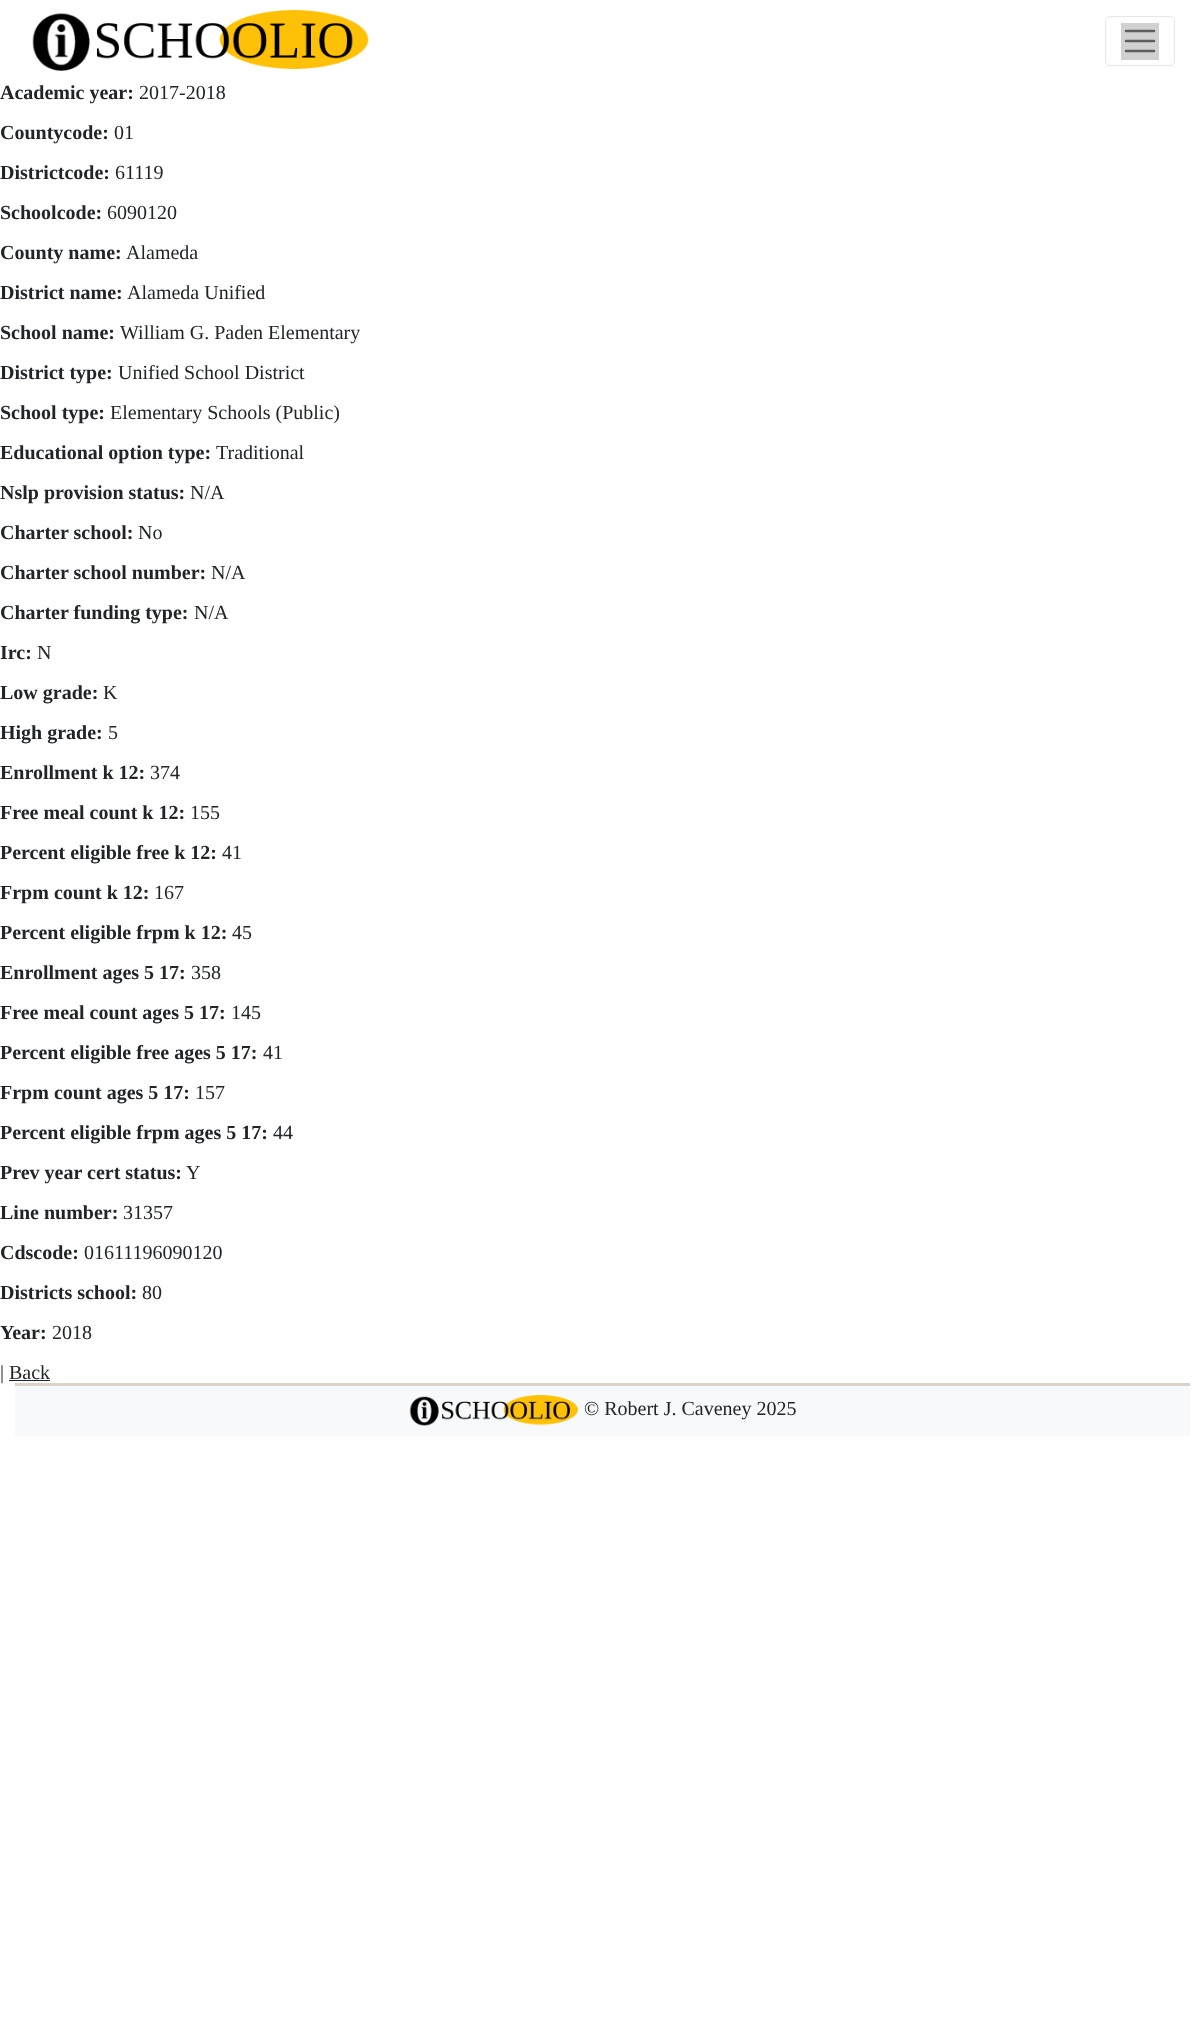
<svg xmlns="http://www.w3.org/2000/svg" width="1204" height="2028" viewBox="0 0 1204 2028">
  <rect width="100%" height="100%" fill="rgb(255,255,255)"/>
  <image x="32" y="10" width="337" height="61" href="pic1.png"/>
  <rect x="1105.5" y="16.5" width="69" height="49" rx="4.5" fill="none" stroke="rgb(230,230,230)"/>
  <rect x="1121" y="23" width="38" height="37" fill="rgb(209,209,209)"/>
  <path d="M1126 31H1154M1126 41H1154M1126 51H1154" fill="none" stroke="rgb(94,94,94)" stroke-width="2.5" stroke-linecap="round"/>
  <text x="0" y="99" font-family="Liberation Serif" font-size="20" font-weight="bold" fill="rgb(33,37,41)">Academic year:</text>
  <text x="139" y="99" font-family="Liberation Serif" font-size="20" fill="rgb(33,37,41)">2017-2018</text>
  <text x="0" y="139" font-family="Liberation Serif" font-size="20" font-weight="bold" fill="rgb(33,37,41)">Countycode:</text>
  <text x="114" y="139" font-family="Liberation Serif" font-size="20" fill="rgb(33,37,41)">01</text>
  <text x="0" y="179" font-family="Liberation Serif" font-size="20" font-weight="bold" fill="rgb(33,37,41)">Districtcode:</text>
  <text x="115" y="179" font-family="Liberation Serif" font-size="20" fill="rgb(33,37,41)">61119</text>
  <text x="0" y="219" font-family="Liberation Serif" font-size="20" font-weight="bold" fill="rgb(33,37,41)">Schoolcode:</text>
  <text x="107" y="219" font-family="Liberation Serif" font-size="20" fill="rgb(33,37,41)">6090120</text>
  <text x="0" y="259" font-family="Liberation Serif" font-size="20" font-weight="bold" fill="rgb(33,37,41)">County name:</text>
  <text x="126" y="259" font-family="Liberation Serif" font-size="20" fill="rgb(33,37,41)">Alameda</text>
  <text x="0" y="299" font-family="Liberation Serif" font-size="20" font-weight="bold" fill="rgb(33,37,41)">District name:</text>
  <text x="127" y="299" font-family="Liberation Serif" font-size="20" fill="rgb(33,37,41)">Alameda Unified</text>
  <text x="0" y="339" font-family="Liberation Serif" font-size="20" font-weight="bold" fill="rgb(33,37,41)">School name:</text>
  <text x="120" y="339" font-family="Liberation Serif" font-size="20" fill="rgb(33,37,41)">William G. Paden Elementary</text>
  <text x="0" y="379" font-family="Liberation Serif" font-size="20" font-weight="bold" fill="rgb(33,37,41)">District type:</text>
  <text x="118" y="379" font-family="Liberation Serif" font-size="20" fill="rgb(33,37,41)">Unified School District</text>
  <text x="0" y="419" font-family="Liberation Serif" font-size="20" font-weight="bold" fill="rgb(33,37,41)">School type:</text>
  <text x="110" y="419" font-family="Liberation Serif" font-size="20" fill="rgb(33,37,41)">Elementary Schools (Public)</text>
  <text x="0" y="459" font-family="Liberation Serif" font-size="20" font-weight="bold" fill="rgb(33,37,41)">Educational option type:</text>
  <text x="216" y="459" font-family="Liberation Serif" font-size="20" fill="rgb(33,37,41)">Traditional</text>
  <text x="0" y="499" font-family="Liberation Serif" font-size="20" font-weight="bold" fill="rgb(33,37,41)">Nslp provision status:</text>
  <text x="190" y="499" font-family="Liberation Serif" font-size="20" fill="rgb(33,37,41)">N/A</text>
  <text x="0" y="539" font-family="Liberation Serif" font-size="20" font-weight="bold" fill="rgb(33,37,41)">Charter school:</text>
  <text x="138" y="539" font-family="Liberation Serif" font-size="20" fill="rgb(33,37,41)">No</text>
  <text x="0" y="579" font-family="Liberation Serif" font-size="20" font-weight="bold" fill="rgb(33,37,41)">Charter school number:</text>
  <text x="211" y="579" font-family="Liberation Serif" font-size="20" fill="rgb(33,37,41)">N/A</text>
  <text x="0" y="619" font-family="Liberation Serif" font-size="20" font-weight="bold" fill="rgb(33,37,41)">Charter funding type:</text>
  <text x="194" y="619" font-family="Liberation Serif" font-size="20" fill="rgb(33,37,41)">N/A</text>
  <text x="0" y="659" font-family="Liberation Serif" font-size="20" font-weight="bold" fill="rgb(33,37,41)">Irc:</text>
  <text x="37" y="659" font-family="Liberation Serif" font-size="20" fill="rgb(33,37,41)">N</text>
  <text x="0" y="699" font-family="Liberation Serif" font-size="20" font-weight="bold" fill="rgb(33,37,41)">Low grade:</text>
  <text x="103" y="699" font-family="Liberation Serif" font-size="20" fill="rgb(33,37,41)">K</text>
  <text x="0" y="739" font-family="Liberation Serif" font-size="20" font-weight="bold" fill="rgb(33,37,41)">High grade:</text>
  <text x="108" y="739" font-family="Liberation Serif" font-size="20" fill="rgb(33,37,41)">5</text>
  <text x="0" y="779" font-family="Liberation Serif" font-size="20" font-weight="bold" fill="rgb(33,37,41)">Enrollment k 12:</text>
  <text x="150" y="779" font-family="Liberation Serif" font-size="20" fill="rgb(33,37,41)">374</text>
  <text x="0" y="819" font-family="Liberation Serif" font-size="20" font-weight="bold" fill="rgb(33,37,41)">Free meal count k 12:</text>
  <text x="190" y="819" font-family="Liberation Serif" font-size="20" fill="rgb(33,37,41)">155</text>
  <text x="0" y="859" font-family="Liberation Serif" font-size="20" font-weight="bold" fill="rgb(33,37,41)">Percent eligible free k 12:</text>
  <text x="222" y="859" font-family="Liberation Serif" font-size="20" fill="rgb(33,37,41)">41</text>
  <text x="0" y="899" font-family="Liberation Serif" font-size="20" font-weight="bold" fill="rgb(33,37,41)">Frpm count k 12:</text>
  <text x="154" y="899" font-family="Liberation Serif" font-size="20" fill="rgb(33,37,41)">167</text>
  <text x="0" y="939" font-family="Liberation Serif" font-size="20" font-weight="bold" fill="rgb(33,37,41)">Percent eligible frpm k 12:</text>
  <text x="232" y="939" font-family="Liberation Serif" font-size="20" fill="rgb(33,37,41)">45</text>
  <text x="0" y="979" font-family="Liberation Serif" font-size="20" font-weight="bold" fill="rgb(33,37,41)">Enrollment ages 5 17:</text>
  <text x="191" y="979" font-family="Liberation Serif" font-size="20" fill="rgb(33,37,41)">358</text>
  <text x="0" y="1019" font-family="Liberation Serif" font-size="20" font-weight="bold" fill="rgb(33,37,41)">Free meal count ages 5 17:</text>
  <text x="231" y="1019" font-family="Liberation Serif" font-size="20" fill="rgb(33,37,41)">145</text>
  <text x="0" y="1059" font-family="Liberation Serif" font-size="20" font-weight="bold" fill="rgb(33,37,41)">Percent eligible free ages 5 17:</text>
  <text x="263" y="1059" font-family="Liberation Serif" font-size="20" fill="rgb(33,37,41)">41</text>
  <text x="0" y="1099" font-family="Liberation Serif" font-size="20" font-weight="bold" fill="rgb(33,37,41)">Frpm count ages 5 17:</text>
  <text x="195" y="1099" font-family="Liberation Serif" font-size="20" fill="rgb(33,37,41)">157</text>
  <text x="0" y="1139" font-family="Liberation Serif" font-size="20" font-weight="bold" fill="rgb(33,37,41)">Percent eligible frpm ages 5 17:</text>
  <text x="273" y="1139" font-family="Liberation Serif" font-size="20" fill="rgb(33,37,41)">44</text>
  <text x="0" y="1179" font-family="Liberation Serif" font-size="20" font-weight="bold" fill="rgb(33,37,41)">Prev year cert status:</text>
  <text x="186" y="1179" font-family="Liberation Serif" font-size="20" fill="rgb(33,37,41)">Y</text>
  <text x="0" y="1219" font-family="Liberation Serif" font-size="20" font-weight="bold" fill="rgb(33,37,41)">Line number:</text>
  <text x="123" y="1219" font-family="Liberation Serif" font-size="20" fill="rgb(33,37,41)">31357</text>
  <text x="0" y="1259" font-family="Liberation Serif" font-size="20" font-weight="bold" fill="rgb(33,37,41)">Cdscode:</text>
  <text x="84" y="1259" font-family="Liberation Serif" font-size="20" fill="rgb(33,37,41)">01611196090120</text>
  <text x="0" y="1299" font-family="Liberation Serif" font-size="20" font-weight="bold" fill="rgb(33,37,41)">Districts school:</text>
  <text x="142" y="1299" font-family="Liberation Serif" font-size="20" fill="rgb(33,37,41)">80</text>
  <text x="0" y="1339" font-family="Liberation Serif" font-size="20" font-weight="bold" fill="rgb(33,37,41)">Year:</text>
  <g font-family="Liberation Serif" font-size="20" fill="rgb(33,37,41)">
    <text x="52" y="1339">2018</text>
    <text x="0" y="1379">| Back</text>
  </g>
  <rect x="9" y="1380" width="41" height="1" fill="rgb(33,37,41)"/>
  <rect x="15" y="1386" width="1175" height="50" fill="rgb(248,249,250)"/>
  <rect x="15" y="1383" width="1175" height="3" fill="rgb(219,212,200)"/>
  <image x="409" y="1395" width="169" height="31" href="pic2.png"/>
  <text x="584" y="1415" font-family="Liberation Serif" font-size="20" fill="rgb(33,37,41)">© Robert J. Caveney 2025</text>
</svg>
